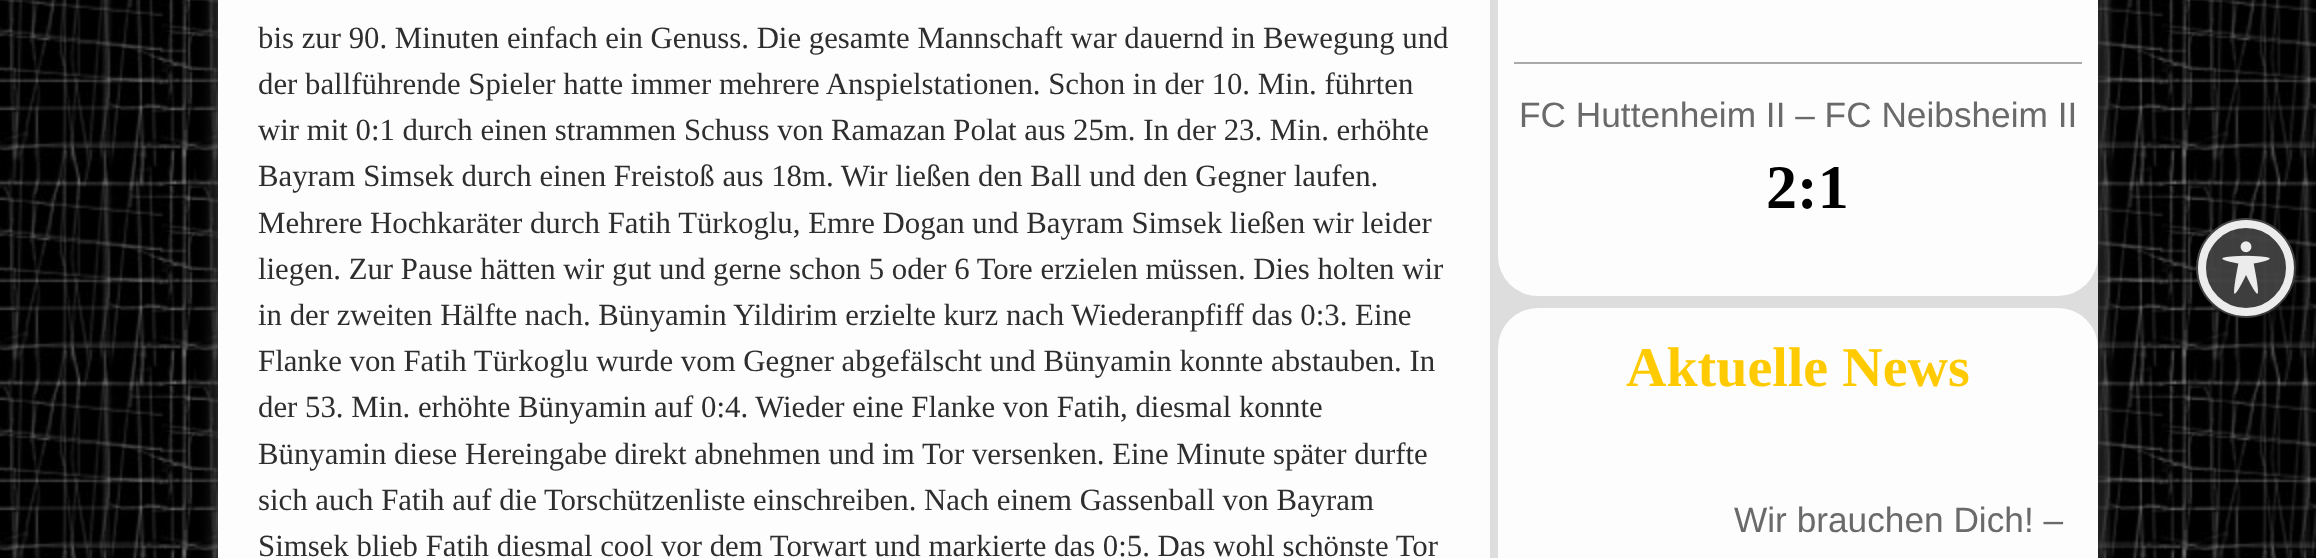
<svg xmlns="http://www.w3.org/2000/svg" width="2316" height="558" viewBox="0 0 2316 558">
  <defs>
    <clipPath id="clip1"><path d="M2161 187H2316V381H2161ZM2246 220C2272.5 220 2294 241.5 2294 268C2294 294.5 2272.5 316 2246 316C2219.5 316 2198 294.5 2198 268C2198 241.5 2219.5 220 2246 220Z" clip-rule="evenodd"/></clipPath>
  </defs>
  <rect width="100%" height="100%" fill="rgb(255,255,255)"/>
  <image x="0" y="0" width="2316" height="558" href="pic1.png"/>
  <rect x="218" y="-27" width="1880" height="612" fill="rgb(68,68,68)" filter="blur(9px)"/>
  <rect x="1490" y="0" width="608" height="558" fill="rgb(221,221,221)"/>
  <rect x="218" y="0" width="1272" height="558" fill="rgb(253,253,253)"/>
  <g font-family="Liberation Serif" font-size="30.8" fill="rgb(46,46,46)">
    <text>
      <tspan x="258" y="48">bis zur 90. Minuten einfach ein Genuss. Die gesamte Mannschaft war dauernd in Bewegung und</tspan>
      <tspan x="258" y="94">der ballführende Spieler hatte immer mehrere Anspielstationen. Schon in der 10. Min. führten</tspan>
      <tspan x="258" y="140">wir mit 0:1 durch einen strammen Schuss von Ramazan Polat aus 25m. In der 23. Min. erhöhte</tspan>
      <tspan x="258" y="186">Bayram Simsek durch einen Freistoß aus 18m. Wir ließen den Ball und den Gegner laufen.</tspan>
      <tspan x="258" y="233">Mehrere Hochkaräter durch Fatih Türkoglu, Emre Dogan und Bayram Simsek ließen wir leider</tspan>
      <tspan x="258" y="279">liegen. Zur Pause hätten wir gut und gerne schon 5 oder 6 Tore erzielen müssen. Dies holten wir</tspan>
      <tspan x="258" y="325">in der zweiten Hälfte nach. Bünyamin Yildirim erzielte kurz nach Wiederanpfiff das 0:3. Eine</tspan>
      <tspan x="258" y="371">Flanke von Fatih Türkoglu wurde vom Gegner abgefälscht und Bünyamin konnte abstauben. In</tspan>
      <tspan x="258" y="417">der 53. Min. erhöhte Bünyamin auf 0:4. Wieder eine Flanke von Fatih, diesmal konnte</tspan>
      <tspan x="258" y="464">Bünyamin diese Hereingabe direkt abnehmen und im Tor versenken. Eine Minute später durfte</tspan>
      <tspan x="258" y="510">sich auch Fatih auf die Torschützenliste einschreiben. Nach einem Gassenball von Bayram</tspan>
      <tspan x="258" y="556">Simsek blieb Fatih diesmal cool vor dem Torwart und markierte das 0:5. Das wohl schönste Tor</tspan>
    </text>
  </g>
  <rect x="1498" y="-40" width="600" height="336" rx="40" fill="rgb(253,253,253)"/>
  <rect x="1514" y="62" width="568" height="2" fill="rgb(170,170,170)"/>
  <text x="1519" y="127" font-family="Liberation Sans" font-size="35.25" fill="rgb(107,106,106)">FC Huttenheim II – FC Neibsheim II</text>
  <text x="1766" y="208" font-family="Liberation Serif" font-size="62" font-weight="bold" fill="rgb(0,0,0)">2:1</text>
  <rect x="1498" y="308" width="600" height="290" rx="40" fill="rgb(253,253,253)"/>
  <text x="1626" y="386" font-family="Liberation Serif" font-size="56" font-weight="bold" fill="rgb(255,203,0)">Aktuelle News</text>
  <text x="1734" y="532" font-family="Liberation Sans" font-size="35.25" fill="rgb(107,106,106)">Wir brauchen Dich! –</text>
  <circle cx="2246" cy="268" r="49" fill="none" stroke="rgb(69,69,69)" stroke-width="2"/>
  <g clip-path="url(#clip1)">
    <rect x="2210" y="236" width="96" height="96" rx="48" fill="rgba(0,0,0,0.18)" filter="blur(16px)"/>
  </g>
  <circle cx="2246" cy="268" r="48" fill="rgba(69,69,69,0.9)"/>
  <circle cx="2246" cy="268" r="44" fill="none" stroke="rgba(255,255,255,0.9)" stroke-width="8"/>
  <image x="2222" y="241" width="48" height="53" href="pic2.png"/>
</svg>
